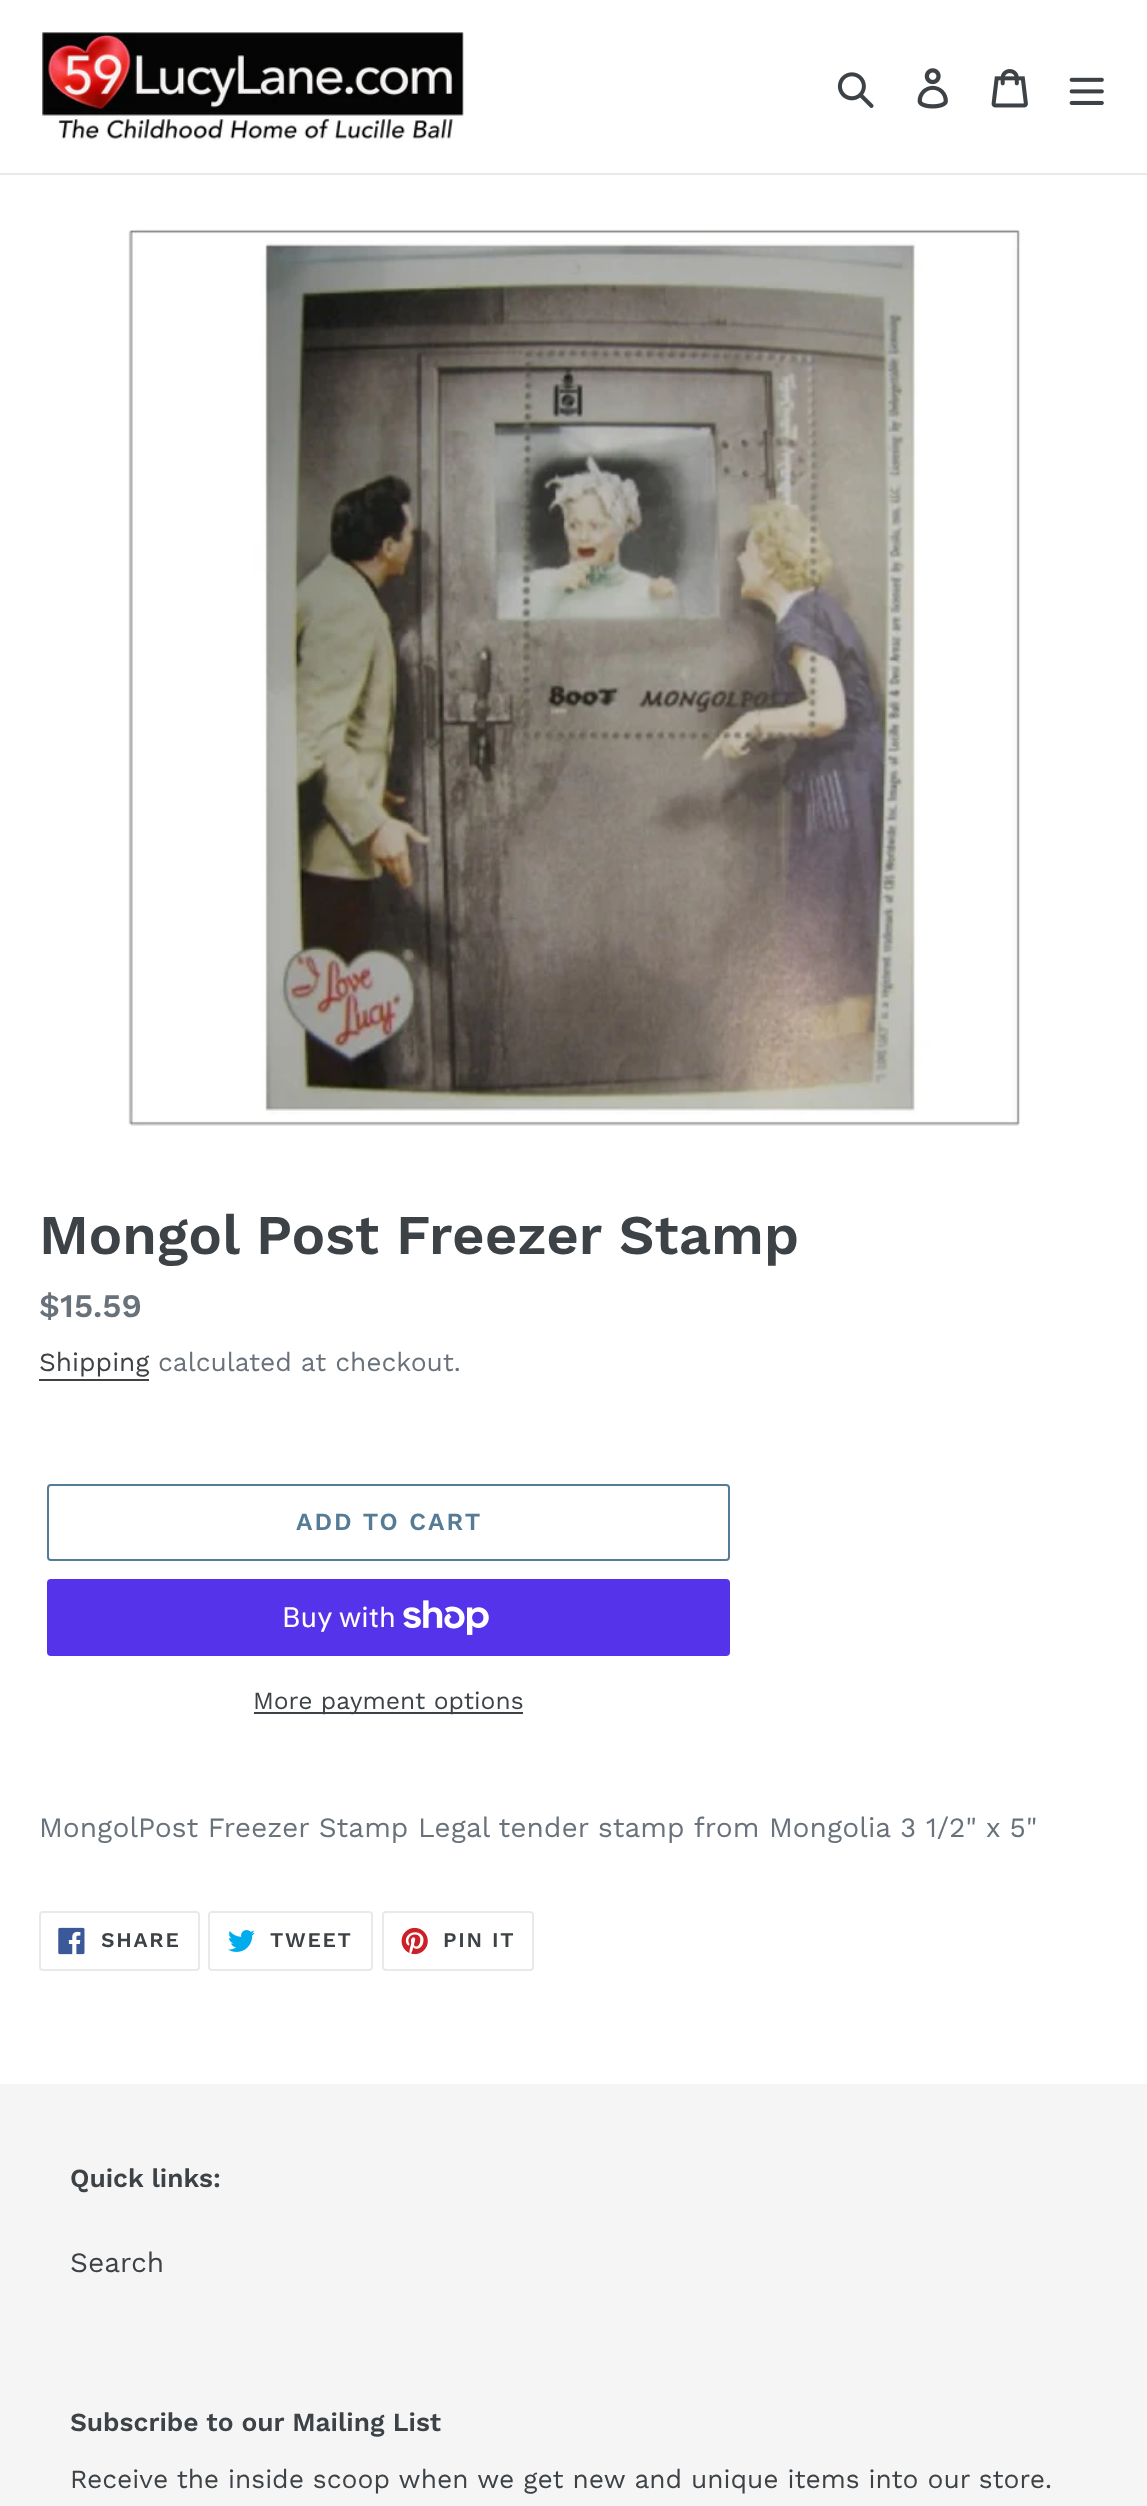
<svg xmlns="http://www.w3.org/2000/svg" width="1147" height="2506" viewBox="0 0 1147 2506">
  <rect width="100%" height="100%" fill="rgb(255,255,255)"/>
  <rect x="0" y="173" width="1147" height="2" fill="rgb(232,233,235)"/>
  <image x="40" y="32" width="425" height="110" href="pic1.png"/>
  <image x="837" y="72" width="37" height="36" href="pic2.png"/>
  <image x="917" y="68" width="31" height="41" href="pic3.png"/>
  <image x="991" y="69" width="37" height="39" href="pic4.png"/>
  <image x="1069" y="77" width="35" height="28" href="pic5.png"/>
  <image x="128" y="229" width="896" height="897" href="pic6.png"/>
  <text x="39" y="1254" font-family="Work Sans" font-size="56" font-weight="600" fill="rgb(61,66,70)">Mongol Post Freezer Stamp</text>
  <text x="39" y="1317" font-family="Work Sans" font-size="33" font-weight="600" fill="rgb(105,114,123)">$15.59</text>
  <text x="39" y="1371" font-family="Work Sans" font-size="26.25" fill="rgb(61,66,70)">Shipping</text>
  <rect x="39" y="1379" width="110" height="2" fill="rgb(61,66,70)"/>
  <text x="158" y="1371" font-family="Work Sans" font-size="26.25" fill="rgb(105,114,123)">calculated at checkout.</text>
  <rect x="48" y="1485" width="681" height="75" rx="3" fill="none" stroke="rgb(85,123,151)" stroke-width="2"/>
  <text x="296" y="1530" font-family="Work Sans" font-size="24.5" font-weight="600" letter-spacing="2" fill="rgb(85,123,151)">ADD TO CART</text>
  <rect x="47" y="1579" width="683" height="77" rx="4" fill="rgb(84,51,235)"/>
  <text x="282" y="1627" font-family="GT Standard" font-size="28" fill="rgb(255,255,255)">Buy with</text>
  <image x="403" y="1600" width="86" height="35" href="pic7.png"/>
  <rect x="254" y="1712" width="269" height="2" fill="rgb(61,66,70)"/>
  <text x="253" y="1709" font-family="Work Sans" font-size="24.5" fill="rgb(61,66,70)">More payment options</text>
  <text x="39" y="1837" font-family="Work Sans" font-size="28" fill="rgb(105,114,123)">MongolPost Freezer Stamp Legal tender stamp from Mongolia 3 1/2" x 5"</text>
  <rect x="40" y="1912" width="159" height="58" rx="3" fill="none" stroke="rgb(232,233,235)" stroke-width="2"/>
  <image x="58" y="1927" width="27" height="28" href="pic8.png"/>
  <text x="101" y="1947" font-family="Work Sans" font-size="21" font-weight="600" letter-spacing="1.75" fill="rgb(61,66,70)">SHARE</text>
  <rect x="209" y="1912" width="163" height="58" rx="3" fill="none" stroke="rgb(232,233,235)" stroke-width="2"/>
  <image x="228" y="1930" width="27" height="22" href="pic9.png"/>
  <text x="270" y="1947" font-family="Work Sans" font-size="21" font-weight="600" letter-spacing="1.75" fill="rgb(61,66,70)">TWEET</text>
  <rect x="383" y="1912" width="150" height="58" rx="3" fill="none" stroke="rgb(232,233,235)" stroke-width="2"/>
  <image x="401" y="1927" width="27" height="28" href="pic10.png"/>
  <text x="443" y="1947" font-family="Work Sans" font-size="21" font-weight="600" letter-spacing="1.75" fill="rgb(61,66,70)">PIN IT</text>
  <rect x="0" y="2084" width="1147" height="422" fill="rgb(245,245,245)"/>
  <text x="70" y="2187" font-family="Work Sans" font-size="26.25" font-weight="600" fill="rgb(61,66,70)">Quick links:</text>
  <text x="70" y="2272" font-family="Work Sans" font-size="28" fill="rgb(61,66,70)">Search</text>
  <text x="70" y="2431" font-family="Work Sans" font-size="26.25" font-weight="600" fill="rgb(61,66,70)">Subscribe to our Mailing List</text>
  <text x="70" y="2488" font-family="Work Sans" font-size="26.25" fill="rgb(61,66,70)">Receive the inside scoop when we get new and unique items into our store.</text>
</svg>
